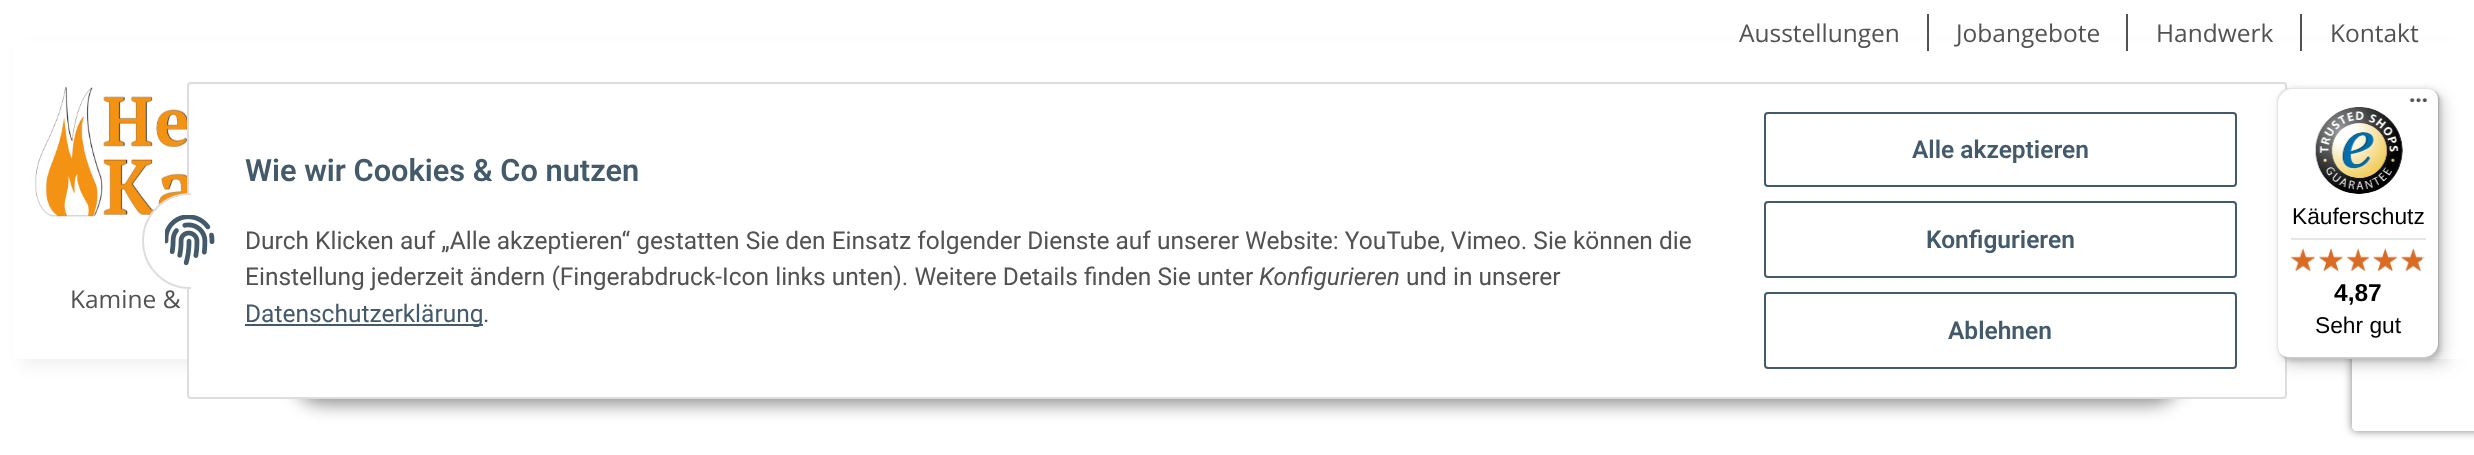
<svg xmlns="http://www.w3.org/2000/svg" width="2474" height="455" viewBox="0 0 2474 455">
  <defs>
    <clipPath id="clip1"><path d="M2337 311H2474V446H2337ZM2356 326H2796C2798 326 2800 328 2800 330V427C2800 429 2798 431 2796 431H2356C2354 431 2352 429 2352 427V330C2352 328 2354 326 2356 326Z" clip-rule="evenodd"/></clipPath>
  </defs>
  <rect width="100%" height="100%" fill="rgb(255,255,255)"/>
  <rect x="21" y="49" width="2433" height="317" fill="rgba(0,0,0,0.06)" filter="blur(8px)"/>
  <g clip-path="url(#clip1)">
    <rect x="2352" y="326" width="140" height="105" rx="4" fill="rgb(128,128,128)" filter="blur(4.5px)"/>
  </g>
  <rect x="13" y="41" width="2461" height="318" fill="rgb(255,255,255)"/>
  <text x="1739" y="42" font-family="Open Sans" font-size="24.5" fill="rgb(82,82,82)">Ausstellungen</text>
  <rect x="1927" y="14" width="2" height="37" fill="rgb(82,82,82)"/>
  <text x="1956" y="42" font-family="Open Sans" font-size="24.5" fill="rgb(82,82,82)">Jobangebote</text>
  <rect x="2126" y="14" width="2" height="37" fill="rgb(82,82,82)"/>
  <text x="2156" y="42" font-family="Open Sans" font-size="24.5" fill="rgb(82,82,82)">Handwerk</text>
  <rect x="2300" y="14" width="2" height="37" fill="rgb(82,82,82)"/>
  <text x="2330" y="42" font-family="Open Sans" font-size="24.5" fill="rgb(82,82,82)">Kontakt</text>
  <image x="35" y="86" width="152" height="131" href="pic1.png"/>
  <text x="70" y="308" font-family="Open Sans" font-size="24.5" fill="rgb(82,82,82)">Kamine &amp;</text>
  <rect x="294" y="348" width="1887" height="56" rx="28" fill="rgba(0,0,0,0.45)" filter="blur(9px)"/>
  <rect x="188" y="83" width="2098" height="315" rx="3" fill="rgb(255,255,255)" stroke="rgb(221,221,221)" stroke-width="2"/>
  <circle cx="190" cy="241" r="47" fill="rgb(255,255,255)" stroke="rgb(221,221,221)" stroke-width="2"/>
  <rect x="191" y="193" width="47" height="96" fill="rgb(255,255,255)"/>
  <image x="165" y="215" width="50" height="51" href="pic2.png"/>
  <text x="245" y="181" font-family="Roboto" font-size="30.75" font-weight="600" fill="rgb(67,90,107)">Wie wir Cookies &amp; Co nutzen</text>
  <g font-family="Roboto" font-size="24.5" fill="rgb(82,82,82)">
    <text>
      <tspan x="245" y="249">Durch Klicken auf „Alle akzeptieren“ gestatten Sie den Einsatz folgender Dienste auf unserer Website: YouTube, Vimeo. Sie können die</tspan>
      <tspan x="245" y="285">Einstellung jederzeit ändern (Fingerabdruck-Icon links unten). Weitere Details finden Sie unter</tspan>
    </text>
  </g>
  <text x="1259" y="285" font-family="Roboto" font-size="24.5" font-style="italic" fill="rgb(82,82,82)">Konfigurieren</text>
  <text x="1406" y="285" font-family="Roboto" font-size="24.5" fill="rgb(82,82,82)">und in unserer</text>
  <rect x="245" y="324" width="238" height="2" fill="rgb(67,90,107)"/>
  <text x="245" y="322" font-family="Roboto" font-size="24.5" fill="rgb(67,90,107)">Datenschutzerklärung</text>
  <text x="483" y="322" font-family="Roboto" font-size="24.5" fill="rgb(82,82,82)">.</text>
  <rect x="1765" y="113" width="471" height="73" rx="3" fill="none" stroke="rgb(67,90,107)" stroke-width="2"/>
  <text x="1912" y="158" font-family="Roboto" font-size="24.5" font-weight="600" fill="rgb(67,90,107)">Alle akzeptieren</text>
  <rect x="1765" y="202" width="471" height="75" rx="3" fill="none" stroke="rgb(67,90,107)" stroke-width="2"/>
  <text x="1926" y="248" font-family="Roboto" font-size="24.5" font-weight="600" fill="rgb(67,90,107)">Konfigurieren</text>
  <rect x="1765" y="293" width="471" height="75" rx="3" fill="none" stroke="rgb(67,90,107)" stroke-width="2"/>
  <text x="1948" y="339" font-family="Roboto" font-size="24.5" font-weight="600" fill="rgb(67,90,107)">Ablehnen</text>
  <rect x="2282" y="93" width="163" height="271" rx="14" fill="rgba(0,0,0,0.15)" filter="blur(7px)"/>
  <rect x="2279" y="89" width="162" height="272" rx="14" fill="rgba(0,0,0,0.15)" filter="blur(2px)"/>
  <rect x="2277" y="88" width="163" height="271" rx="14" fill="rgb(255,255,255)"/>
  <path d="M2292 89H2427C2431 89 2435 91 2437 94C2435 90 2431 88 2426 88H2291C2283 88 2277 94 2277 102V345C2277 350 2279 354 2283 356C2280 354 2278 350 2278 346V103C2278 96 2285 89 2292 89Z" fill="rgba(0,0,0,0.1)"/>
  <path d="M2281 354C2283 357 2287 359 2291 359H2426C2434 359 2440 353 2440 345V102C2440 97 2438 93 2434 91C2437 93 2438 96 2438 100V343C2438 351 2431 357 2424 357H2289C2286 357 2283 356 2281 354Z" fill="rgba(0,0,0,0.2)"/>
  <path d="M2280 353C2282 357 2286 359 2291 359H2426C2434 359 2440 353 2440 345V102C2440 97 2438 93 2434 91C2437 93 2438 97 2438 100V344C2438 351 2432 358 2424 358H2290C2286 358 2282 356 2280 353Z" fill="rgba(50,50,50,0.2)"/>
  <path d="M2282 355C2284 358 2287 359 2291 359H2426C2434 359 2440 353 2440 345V102C2440 97 2438 93 2434 91C2437 93 2439 97 2439 101V344C2439 352 2432 358 2425 358H2290C2287 358 2284 357 2282 355Z" fill="rgba(255,255,255,0.3)"/>
  <image x="2409" y="98" width="18" height="4" href="pic3.png"/>
  <image x="2315" y="107" width="88" height="87" href="pic4.png"/>
  <text x="2292" y="224" font-family="Liberation Sans" font-size="22.75" fill="rgb(0,0,0)">Käuferschutz</text>
  <rect x="2291" y="238" width="135" height="2" fill="rgb(229,229,229)"/>
  <image x="2290" y="249" width="25" height="22" href="pic5.png"/>
  <image x="2319" y="248" width="24" height="23" href="pic6.png"/>
  <image x="2346" y="249" width="24" height="22" href="pic7.png"/>
  <image x="2373" y="248" width="24" height="23" href="pic8.png"/>
  <image x="2401" y="249" width="24" height="22" href="pic9.png"/>
  <image x="2290" y="248" width="25" height="24" href="pic10.png"/>
  <image x="2319" y="248" width="24" height="24" href="pic11.png"/>
  <image x="2346" y="248" width="24" height="24" href="pic12.png"/>
  <image x="2373" y="248" width="24" height="24" href="pic13.png"/>
  <image x="2401" y="248" width="21" height="24" href="pic14.png"/>
  <text x="2334" y="301" font-family="Liberation Sans" font-size="24.5" font-weight="bold" fill="rgb(0,0,0)">4,87</text>
  <text x="2315" y="333" font-family="Liberation Sans" font-size="22.75" fill="rgb(0,0,0)">Sehr gut</text>
</svg>
